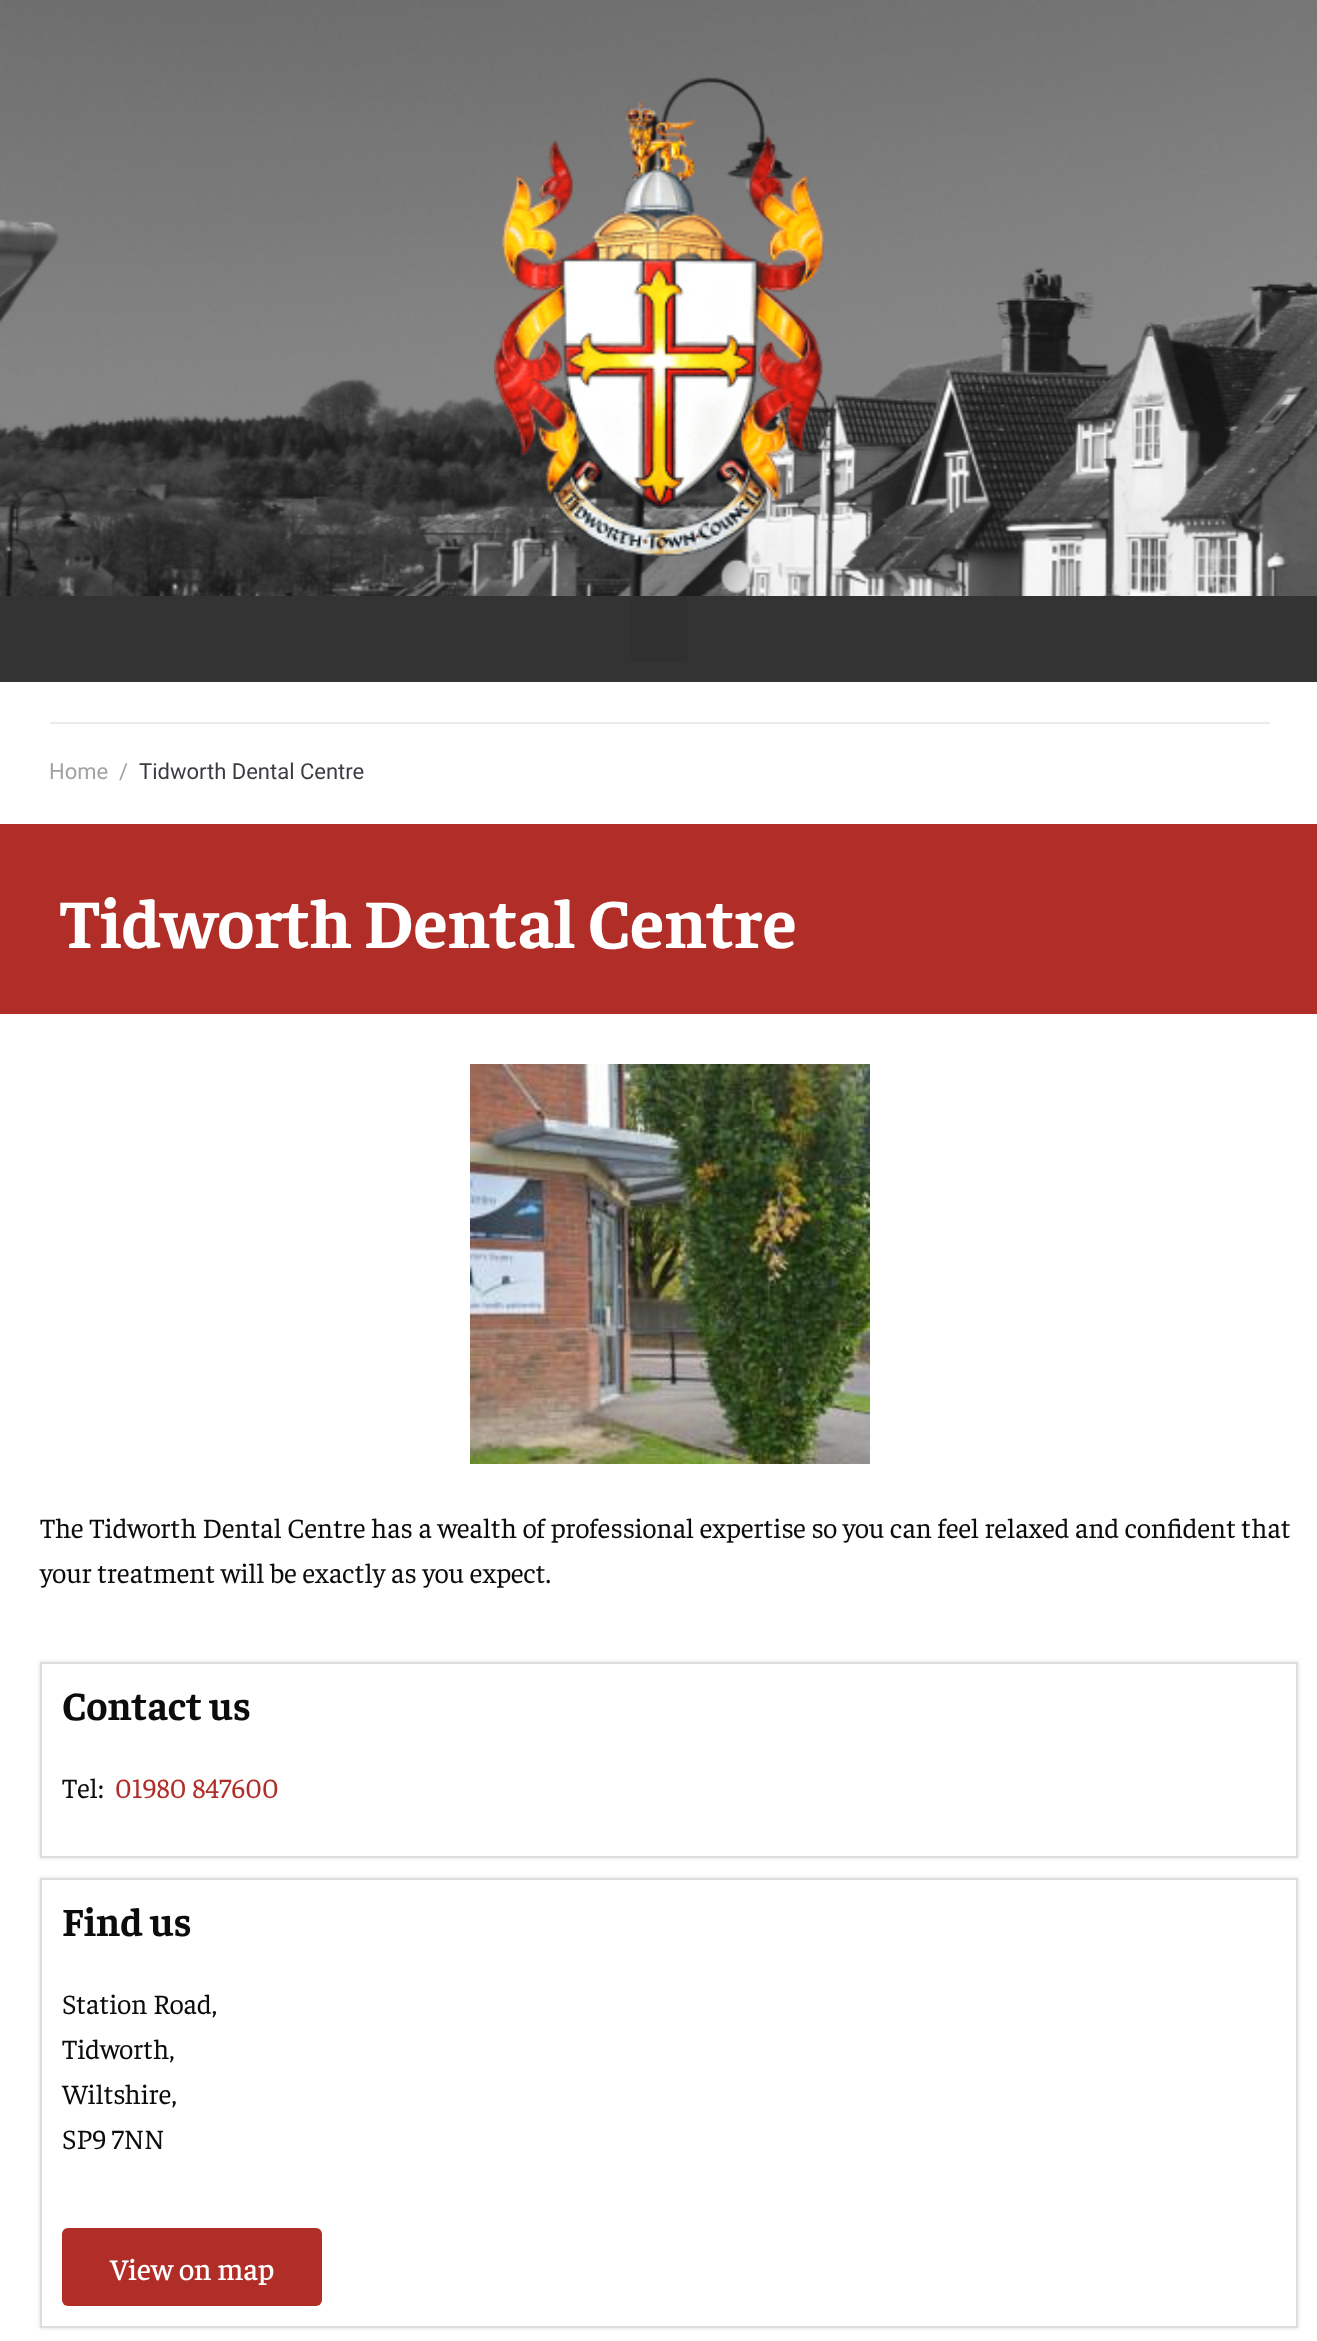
<svg xmlns="http://www.w3.org/2000/svg" width="1317" height="2341" viewBox="0 0 1317 2341">
  <defs>
    <clipPath id="clip1"><path d="M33 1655H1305V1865H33ZM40 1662H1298V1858H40Z" clip-rule="evenodd"/></clipPath>
    <clipPath id="clip2"><path d="M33 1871H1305V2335H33ZM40 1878H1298V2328H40Z" clip-rule="evenodd"/></clipPath>
  </defs>
  <rect width="100%" height="100%" fill="rgb(255,255,255)"/>
  <image x="0" y="0" width="1317" height="596" href="pic1.png"/>
  <image x="494" y="100" width="330" height="456" href="pic2.png"/>
  <rect x="0" y="596" width="1317" height="86" fill="rgb(51,51,51)"/>
  <rect x="630" y="596" width="58" height="66" rx="6" fill="rgb(48,48,48)"/>
  <rect x="50" y="722" width="1220" height="2" fill="rgb(235,236,237)"/>
  <g font-family="Roboto" font-size="22" fill="rgb(161,162,164)">
    <text x="49" y="779">Home</text>
    <text x="119" y="779">/</text>
  </g>
  <text x="139" y="779" font-family="Roboto" font-size="22" fill="rgb(59,61,66)">Tidworth Dental Centre</text>
  <rect x="0" y="824" width="1317" height="190" fill="rgb(177,46,40)"/>
  <text x="60" y="948" font-family="Faustina" font-size="70" font-weight="bold" fill="rgb(255,255,255)">Tidworth Dental Centre</text>
  <image x="470" y="1064" width="400" height="400" href="pic3.png"/>
  <g font-family="Faustina" font-size="28" fill="rgb(12,12,12)">
    <text>
      <tspan x="40" y="1538">The Tidworth Dental Centre has a wealth of professional expertise so you can feel relaxed and confident that</tspan>
      <tspan x="40" y="1583">your treatment will be exactly as you expect.</tspan>
    </text>
  </g>
  <g clip-path="url(#clip1)">
    <rect x="40" y="1662" width="1258" height="196" fill="rgb(221,221,221)" filter="blur(2px)"/>
  </g>
  <rect x="41" y="1663" width="1256" height="194" fill="none" stroke="rgb(221,221,221)" stroke-width="2"/>
  <text x="62" y="1720" font-family="Faustina" font-size="40" font-weight="bold" fill="rgb(12,12,12)">Contact us</text>
  <text x="62" y="1798" font-family="Faustina" font-size="28" fill="rgb(12,12,12)">Tel:</text>
  <text x="115" y="1798" font-family="Faustina" font-size="28" fill="rgb(177,46,40)">01980 847600</text>
  <g clip-path="url(#clip2)">
    <rect x="40" y="1878" width="1258" height="450" fill="rgb(221,221,221)" filter="blur(2px)"/>
  </g>
  <rect x="41" y="1879" width="1256" height="448" fill="none" stroke="rgb(221,221,221)" stroke-width="2"/>
  <text x="62" y="1936" font-family="Faustina" font-size="40" font-weight="bold" fill="rgb(12,12,12)">Find us</text>
  <g font-family="Faustina" font-size="28" fill="rgb(12,12,12)">
    <text>
      <tspan x="62" y="2014">Station Road,</tspan>
      <tspan x="62" y="2059">Tidworth,</tspan>
      <tspan x="62" y="2104">Wiltshire,</tspan>
      <tspan x="62" y="2149">SP9 7NN</tspan>
    </text>
  </g>
  <rect x="62" y="2228" width="260" height="78" rx="6" fill="rgb(177,46,40)"/>
  <text x="110" y="2280" font-family="Faustina" font-size="30" font-weight="500" fill="rgb(255,255,255)">View on map</text>
</svg>
